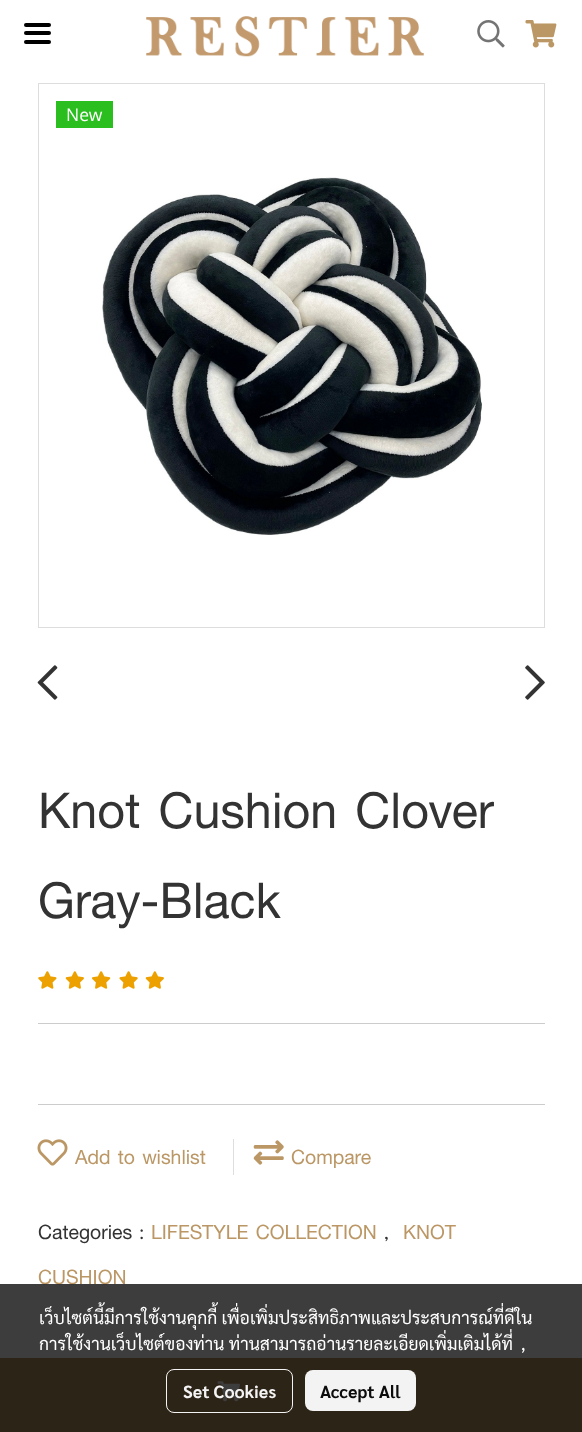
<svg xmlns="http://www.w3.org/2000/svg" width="582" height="1432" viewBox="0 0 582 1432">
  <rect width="100%" height="100%" fill="rgb(255,255,255)"/>
  <rect x="24" y="31" width="27" height="4" rx="2" fill="rgb(0,0,0)"/>
  <rect x="24" y="23" width="27" height="4" rx="2" fill="rgb(0,0,0)"/>
  <rect x="24" y="40" width="27" height="4" rx="2" fill="rgb(0,0,0)"/>
  <image x="146" y="16" width="278" height="41" href="pic1.png"/>
  <image x="477" y="20" width="28" height="28" href="pic2.png"/>
  <image x="525" y="20" width="32" height="28" href="pic3.png"/>
  <rect x="38.5" y="83.5" width="506" height="544" fill="none" stroke="rgb(221,221,221)"/>
  <image x="102" y="177" width="380" height="358" href="pic4.png"/>
  <rect x="56" y="101" width="57" height="27" fill="rgb(43,190,31)"/>
  <text x="66" y="121" font-family="Open Sans" font-size="17.5" fill="rgb(255,255,255)">New</text>
  <image x="37" y="665" width="21" height="35" href="pic5.png"/>
  <image x="525" y="665" width="20" height="35" href="pic6.png"/>
  <g font-family="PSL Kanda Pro" font-size="75" font-weight="bold" fill="rgb(51,51,51)">
    <text>
      <tspan x="38" y="828">Knot Cushion Clover</tspan>
      <tspan x="38" y="918">Gray-Black</tspan>
    </text>
  </g>
  <image x="38" y="971" width="19" height="18" href="pic7.png"/>
  <image x="65" y="971" width="19" height="18" href="pic8.png"/>
  <image x="92" y="971" width="19" height="18" href="pic9.png"/>
  <image x="119" y="971" width="19" height="18" href="pic10.png"/>
  <image x="145" y="971" width="19" height="18" href="pic8.png"/>
  <rect x="38" y="1023" width="507" height="1" fill="rgb(204,204,204)"/>
  <rect x="38" y="1104" width="507" height="1" fill="rgb(204,204,204)"/>
  <image x="37" y="1139" width="31" height="27" href="pic11.png"/>
  <text x="75" y="1164" font-family="PSL Kanda Pro" font-size="30" font-weight="bold" fill="rgb(187,151,101)">Add to wishlist</text>
  <rect x="233" y="1139" width="1" height="36" fill="rgb(222,222,222)"/>
  <image x="253" y="1140" width="31" height="25" href="pic12.png"/>
  <text x="291" y="1164" font-family="PSL Kanda Pro" font-size="30" font-weight="bold" fill="rgb(187,151,101)">Compare</text>
  <text x="38" y="1239" font-family="PSL Kanda Pro" font-size="30" font-weight="bold" fill="rgb(51,51,51)">Categories :</text>
  <text x="151" y="1239" font-family="PSL Kanda Pro" font-size="30" font-weight="bold" fill="rgb(187,151,101)">LIFESTYLE COLLECTION</text>
  <text x="384" y="1239" font-family="PSL Kanda Pro" font-size="30" font-weight="bold" fill="rgb(51,51,51)">,</text>
  <g font-family="PSL Kanda Pro" font-size="30" font-weight="bold" fill="rgb(187,151,101)">
    <text x="403" y="1239">KNOT</text>
    <text x="38" y="1284">CUSHION</text>
  </g>
  <rect x="0" y="1358" width="582" height="74" fill="rgb(187,151,101)"/>
  <image x="217" y="1381" width="23" height="21" href="pic13.png"/>
  <rect x="0" y="1284" width="582" height="148" fill="rgba(0,0,0,0.76)"/>
  <g font-family="Sarabun" font-size="17.5" fill="rgb(255,255,255)">
    <text>
      <tspan x="39" y="1324">เว็บไซต์นี้มีการใช้งานคุกกี้ เพื่อเพิ่มประสิทธิภาพและประสบการณ์ที่ดีใน</tspan>
      <tspan x="39" y="1350">การใช้งานเว็บไซต์ของท่าน ท่านสามารถอ่านรายละเอียดเพิ่มเติมได้ที่</tspan>
    </text>
    <text x="521" y="1350">,</text>
  </g>
  <rect x="166.5" y="1369.5" width="126" height="43" rx="7.5" fill="none" stroke="rgba(255,255,255,0.95)"/>
  <text x="183" y="1398" font-family="Sarabun" font-size="17.5" font-weight="bold" fill="rgb(245,244,244)">Set Cookies</text>
  <rect x="305" y="1370" width="111" height="41" rx="8" fill="rgba(255,255,255,0.95)"/>
  <text x="320" y="1398" font-family="Sarabun" font-size="17.5" font-weight="bold" fill="rgb(12,12,12)">Accept All</text>
</svg>
